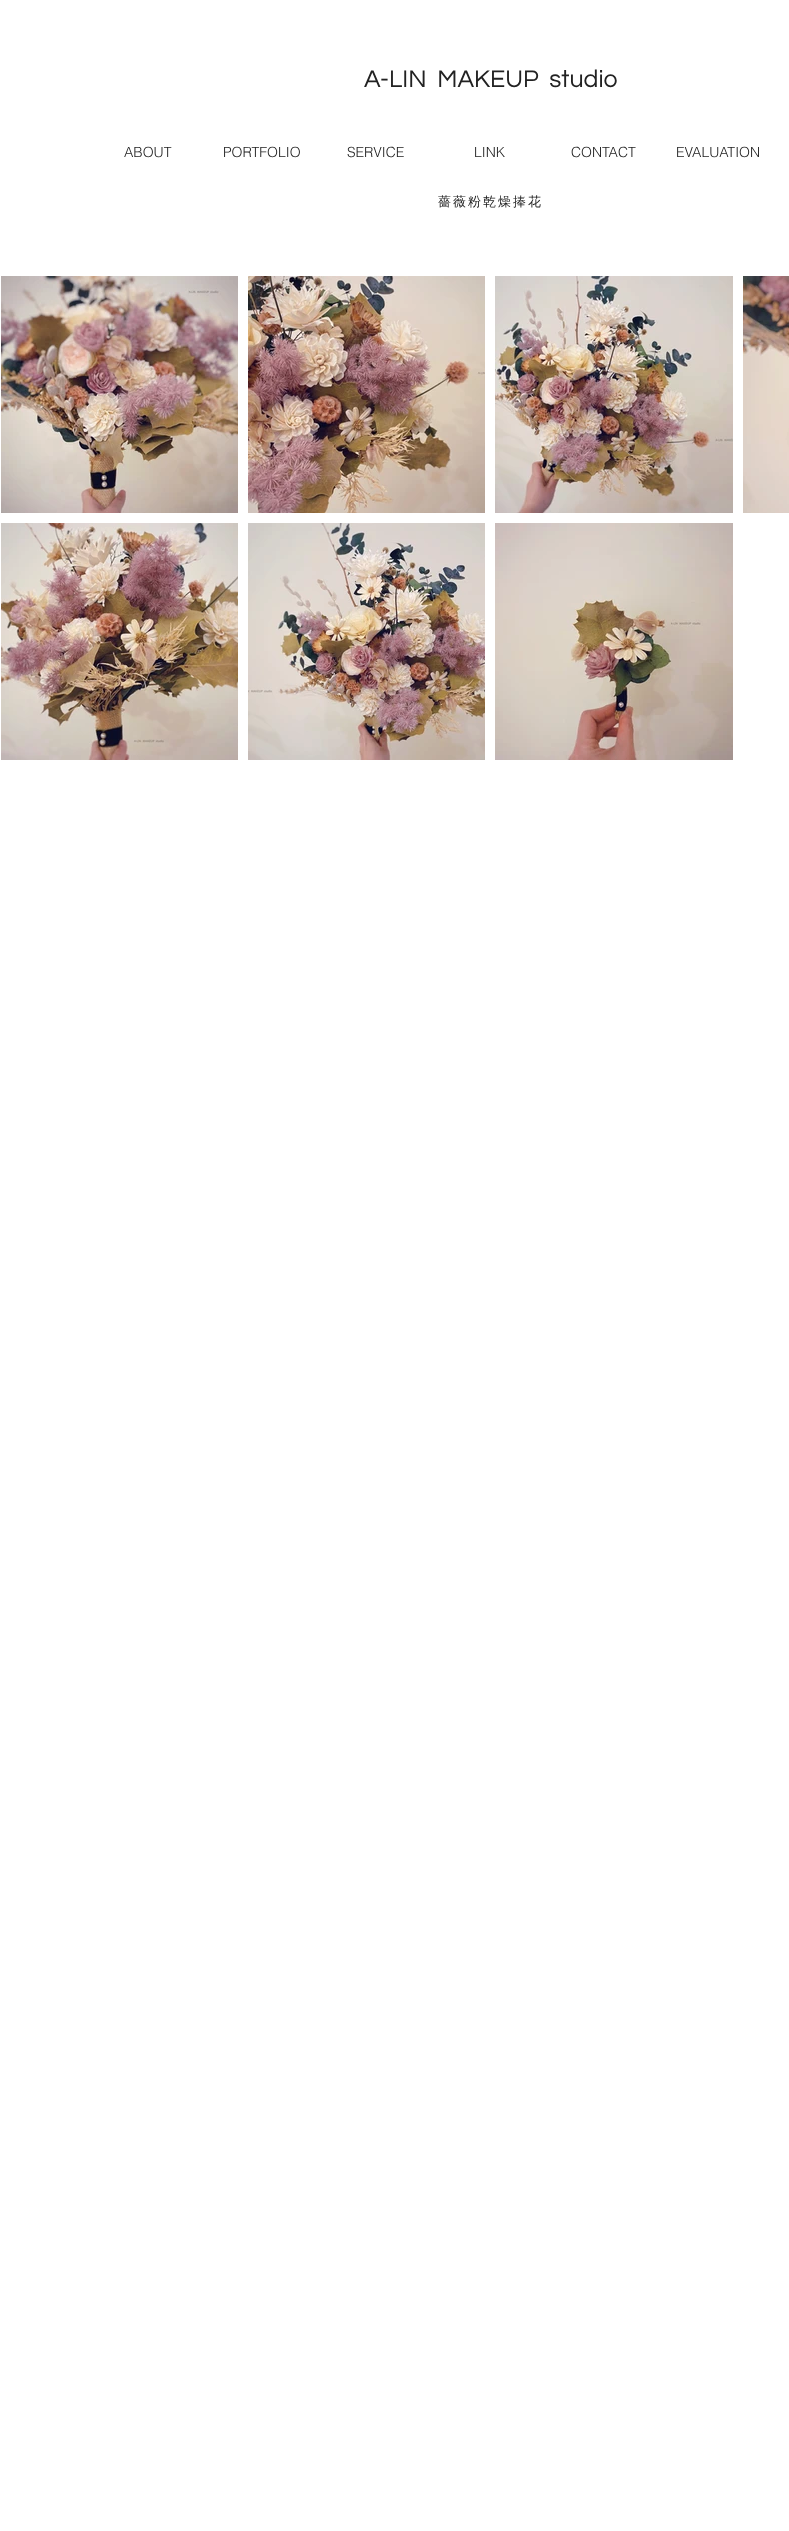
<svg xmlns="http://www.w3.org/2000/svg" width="789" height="2531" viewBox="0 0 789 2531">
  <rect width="100%" height="100%" fill="rgb(255,255,255)"/>
  <text x="364" y="87" font-family="Questrial" font-size="25" fill="rgb(34,34,34)" xml:space="preserve">A-LIN  MAKEUP  studio</text>
  <g font-family="helvetica" font-size="14" font-weight="300" fill="rgb(34,34,34)">
    <text x="124" y="157">ABOUT</text>
    <text x="223" y="157">PORTFOLIO</text>
    <text x="347" y="157">SERVICE</text>
    <text x="474" y="157">LINK</text>
    <text x="571" y="157">CONTACT</text>
    <text x="676" y="157">EVALUATION</text>
  </g>
  <text x="438" y="206" font-family="WenQuanYi Zen Hei" font-size="13" font-weight="500" letter-spacing="2" fill="rgb(34,34,34)">薔薇粉乾燥捧花</text>
  <image x="1" y="276" width="237" height="237" href="pic1.png"/>
  <image x="248" y="276" width="237" height="237" href="pic2.png"/>
  <image x="495" y="276" width="238" height="237" href="pic3.png"/>
  <image x="743" y="276" width="46" height="237" href="pic4.png"/>
  <image x="1" y="523" width="237" height="237" href="pic5.png"/>
  <image x="248" y="523" width="237" height="237" href="pic6.png"/>
  <image x="495" y="523" width="238" height="237" href="pic7.png"/>
</svg>
